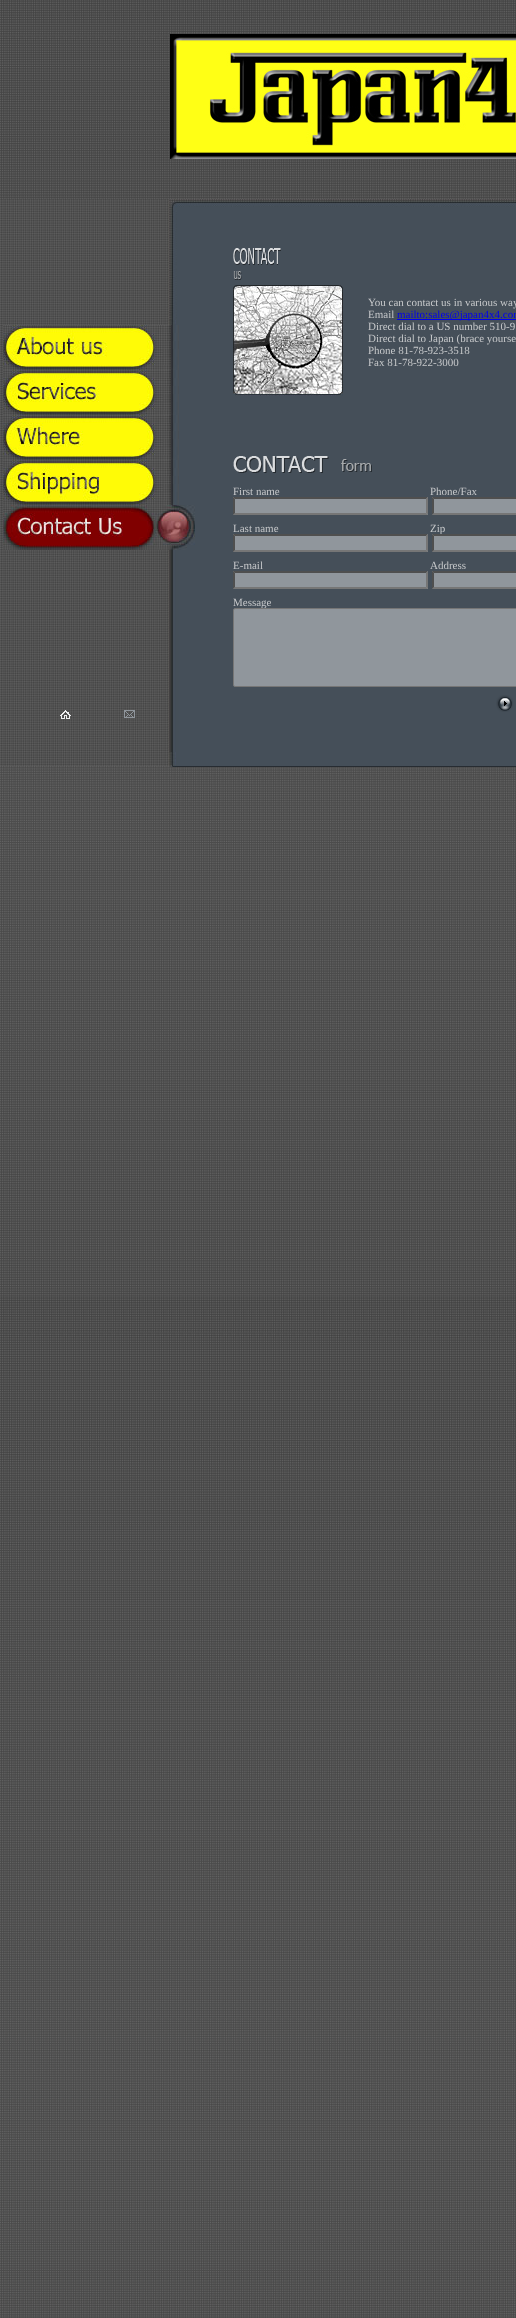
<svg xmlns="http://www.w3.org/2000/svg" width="516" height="2318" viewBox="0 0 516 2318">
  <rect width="100%" height="100%" fill="rgb(255,255,255)"/>
  <image x="0" y="0" width="516" height="2318" href="pic1.png"/>
  <image x="170" y="34" width="346" height="125" href="pic2.png"/>
  <image x="0" y="199" width="195" height="567" href="pic3.png"/>
  <image x="169" y="199" width="26" height="121" href="pic4.png"/>
  <image x="3" y="325" width="176" height="45" href="pic5.png"/>
  <image x="3" y="370" width="176" height="45" href="pic6.png"/>
  <image x="3" y="415" width="176" height="45" href="pic7.png"/>
  <image x="3" y="460" width="176" height="45" href="pic8.png"/>
  <image x="3" y="505" width="192" height="45" href="pic9.png"/>
  <image x="169" y="550" width="7" height="202" href="pic10.png"/>
  <image x="60" y="710" width="11" height="9" href="pic11.png"/>
  <image x="124" y="710" width="11" height="8" href="pic12.png"/>
  <image x="195" y="199" width="321" height="41" href="pic13.png"/>
  <rect x="195" y="240" width="321" height="525" fill="rgb(69,79,89)"/>
  <image x="233" y="248" width="48" height="32" href="pic14.png"/>
  <image x="233" y="285" width="110" height="111" href="pic15.png"/>
  <g font-family="Liberation Serif" font-size="11" fill="rgb(198,200,202)">
    <text>
      <tspan x="368" y="306">You can contact us in various way</tspan>
      <tspan x="368" y="318">Email</tspan>
    </text>
  </g>
  <rect x="397" y="319" width="119" height="1" fill="rgb(0,0,238)"/>
  <text x="397" y="318" font-family="Liberation Serif" font-size="11" fill="rgb(0,0,238)">mailto:sales@japan4x4.com</text>
  <g font-family="Liberation Serif" font-size="11" fill="rgb(198,200,202)">
    <text>
      <tspan x="368" y="330">Direct dial to a US number 510-9</tspan>
      <tspan x="368" y="342">Direct dial to Japan (brace yourse</tspan>
      <tspan x="368" y="354">Phone 81-78-923-3518</tspan>
      <tspan x="368" y="366">Fax 81-78-922-3000</tspan>
    </text>
  </g>
  <image x="233" y="456" width="139" height="17" href="pic16.png"/>
  <g font-family="Liberation Serif" font-size="11" fill="rgb(198,200,202)">
    <text x="233" y="495">First name</text>
    <text x="430" y="495">Phone/Fax</text>
  </g>
  <rect x="233" y="497" width="195" height="18" fill="rgb(144,150,156)"/>
  <path d="M233 497H428L426 499H235Z" fill="rgb(79,79,79)"/>
  <path d="M428 497V515L426 513V499Z" fill="rgb(118,118,118)"/>
  <path d="M428 515H233L235 513H426Z" fill="rgb(118,118,118)"/>
  <path d="M233 515V497L235 499V513Z" fill="rgb(79,79,79)"/>
  <rect x="432" y="497" width="84" height="18" fill="rgb(144,150,156)"/>
  <path d="M432 497H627L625 499H434Z" fill="rgb(79,79,79)"/>
  <path d="M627 515H432L434 513H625Z" fill="rgb(118,118,118)"/>
  <path d="M432 515V497L434 499V513Z" fill="rgb(79,79,79)"/>
  <g font-family="Liberation Serif" font-size="11" fill="rgb(198,200,202)">
    <text x="233" y="532">Last name</text>
    <text x="430" y="532">Zip</text>
  </g>
  <rect x="233" y="534" width="195" height="18" fill="rgb(144,150,156)"/>
  <path d="M233 534H428L426 536H235Z" fill="rgb(79,79,79)"/>
  <path d="M428 534V552L426 550V536Z" fill="rgb(118,118,118)"/>
  <path d="M428 552H233L235 550H426Z" fill="rgb(118,118,118)"/>
  <path d="M233 552V534L235 536V550Z" fill="rgb(79,79,79)"/>
  <rect x="432" y="534" width="84" height="18" fill="rgb(144,150,156)"/>
  <path d="M432 534H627L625 536H434Z" fill="rgb(79,79,79)"/>
  <path d="M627 552H432L434 550H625Z" fill="rgb(118,118,118)"/>
  <path d="M432 552V534L434 536V550Z" fill="rgb(79,79,79)"/>
  <g font-family="Liberation Serif" font-size="11" fill="rgb(198,200,202)">
    <text x="233" y="569">E-mail</text>
    <text x="430" y="569">Address</text>
  </g>
  <rect x="233" y="571" width="195" height="18" fill="rgb(144,150,156)"/>
  <path d="M233 571H428L426 573H235Z" fill="rgb(79,79,79)"/>
  <path d="M428 571V589L426 587V573Z" fill="rgb(118,118,118)"/>
  <path d="M428 589H233L235 587H426Z" fill="rgb(118,118,118)"/>
  <path d="M233 589V571L235 573V587Z" fill="rgb(79,79,79)"/>
  <rect x="432" y="571" width="84" height="18" fill="rgb(144,150,156)"/>
  <path d="M432 571H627L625 573H434Z" fill="rgb(79,79,79)"/>
  <path d="M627 589H432L434 587H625Z" fill="rgb(118,118,118)"/>
  <path d="M432 589V571L434 573V587Z" fill="rgb(79,79,79)"/>
  <text x="233" y="606" font-family="Liberation Serif" font-size="11" fill="rgb(198,200,202)">Message</text>
  <rect x="233.5" y="608.5" width="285" height="78" rx="1.5" fill="rgb(144,150,156)" stroke="rgb(118,118,118)"/>
  <image x="496" y="695" width="17" height="17" href="pic17.png"/>
  <image x="195" y="765" width="321" height="2" href="pic18.png"/>
  <image x="170" y="765" width="25" height="2" href="pic19.png"/>
</svg>
